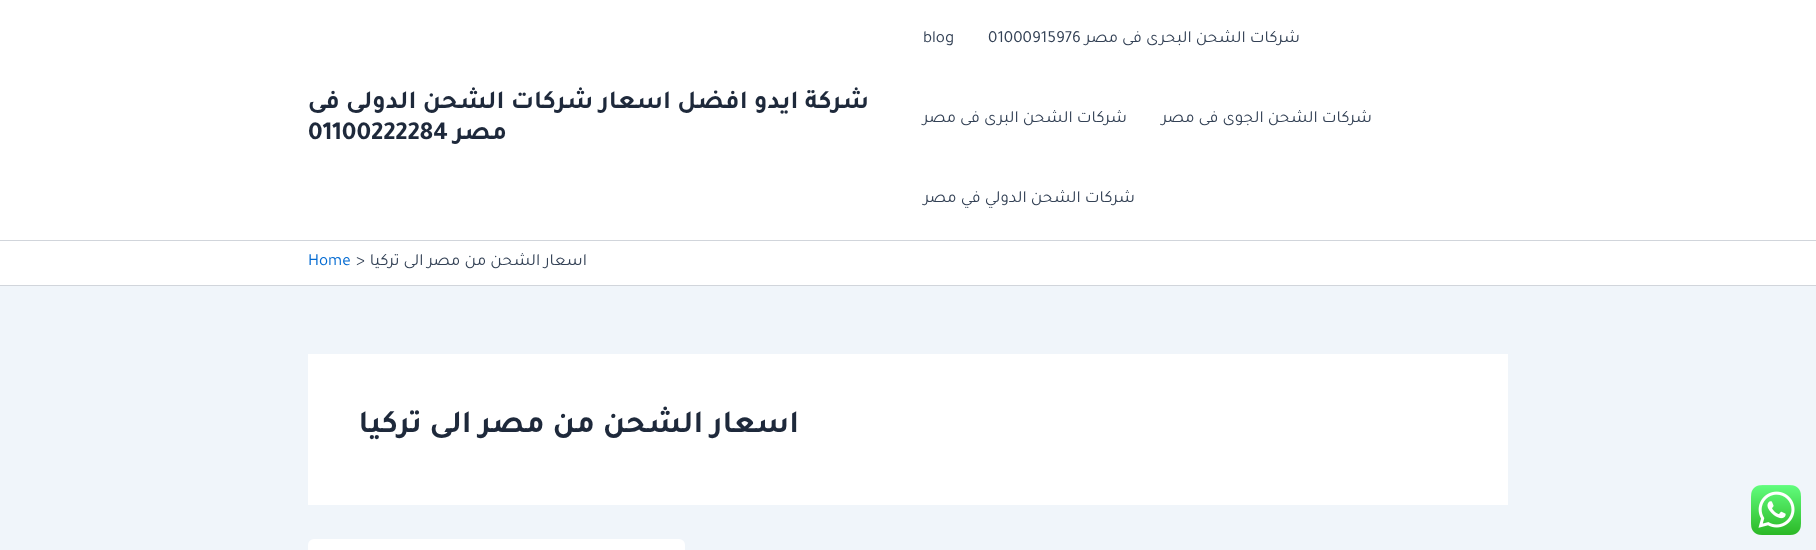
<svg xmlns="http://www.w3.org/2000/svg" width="1816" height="550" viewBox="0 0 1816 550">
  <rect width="100%" height="100%" fill="rgb(240,245,250)"/>
  <rect x="0" y="0" width="1816" height="240" fill="rgb(255,255,255)"/>
  <rect x="0" y="240" width="1816" height="1" fill="rgb(209,213,219)"/>
  <text x="1300" y="42" font-family="Tajawal" font-size="17" direction="rtl" fill="rgb(51,65,85)">شركات الشحن البحرى فى مصر</text>
  <g font-family="Tajawal" font-size="17" fill="rgb(51,65,85)">
    <text x="988" y="42">01000915976</text>
    <text x="923" y="42">blog</text>
  </g>
  <g font-family="Tajawal" font-size="17" direction="rtl" fill="rgb(51,65,85)">
    <text x="1372" y="122">شركات الشحن الجوى فى مصر</text>
    <text x="1127" y="122">شركات الشحن البرى فى مصر</text>
    <text x="1135" y="202">شركات الشحن الدولي في مصر</text>
  </g>
  <g font-family="Tajawal" font-size="26" font-weight="bold" direction="rtl" fill="rgb(30,41,59)">
    <text x="869" y="108">شركة ايدو افضل اسعار شركات الشحن الدولى فى</text>
    <text x="507" y="139">مصر</text>
  </g>
  <text x="308" y="139" font-family="Tajawal" font-size="26" font-weight="bold" fill="rgb(30,41,59)">01100222284</text>
  <rect x="0" y="241" width="1816" height="44" fill="rgb(255,255,255)"/>
  <rect x="0" y="285" width="1816" height="1" fill="rgb(209,213,219)"/>
  <text x="587" y="265" font-family="Tajawal" font-size="17" direction="rtl" fill="rgb(51,65,85)">اسعار الشحن من مصر الى تركيا</text>
  <text x="356" y="265" font-family="Tajawal" font-size="17" fill="rgb(51,65,85)">&gt;</text>
  <text x="308" y="265" font-family="Tajawal" font-size="17" fill="rgb(4,107,210)">Home</text>
  <rect x="308" y="354" width="1200" height="151" fill="rgb(255,255,255)"/>
  <text x="799" y="432" font-family="Tajawal" font-size="32" font-weight="bold" direction="rtl" fill="rgb(30,41,59)">اسعار الشحن من مصر الى تركيا</text>
  <rect x="308" y="539" width="377" height="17" rx="6" fill="rgb(255,255,255)"/>
  <image x="1751" y="485" width="50" height="50" href="pic1.png"/>
</svg>
